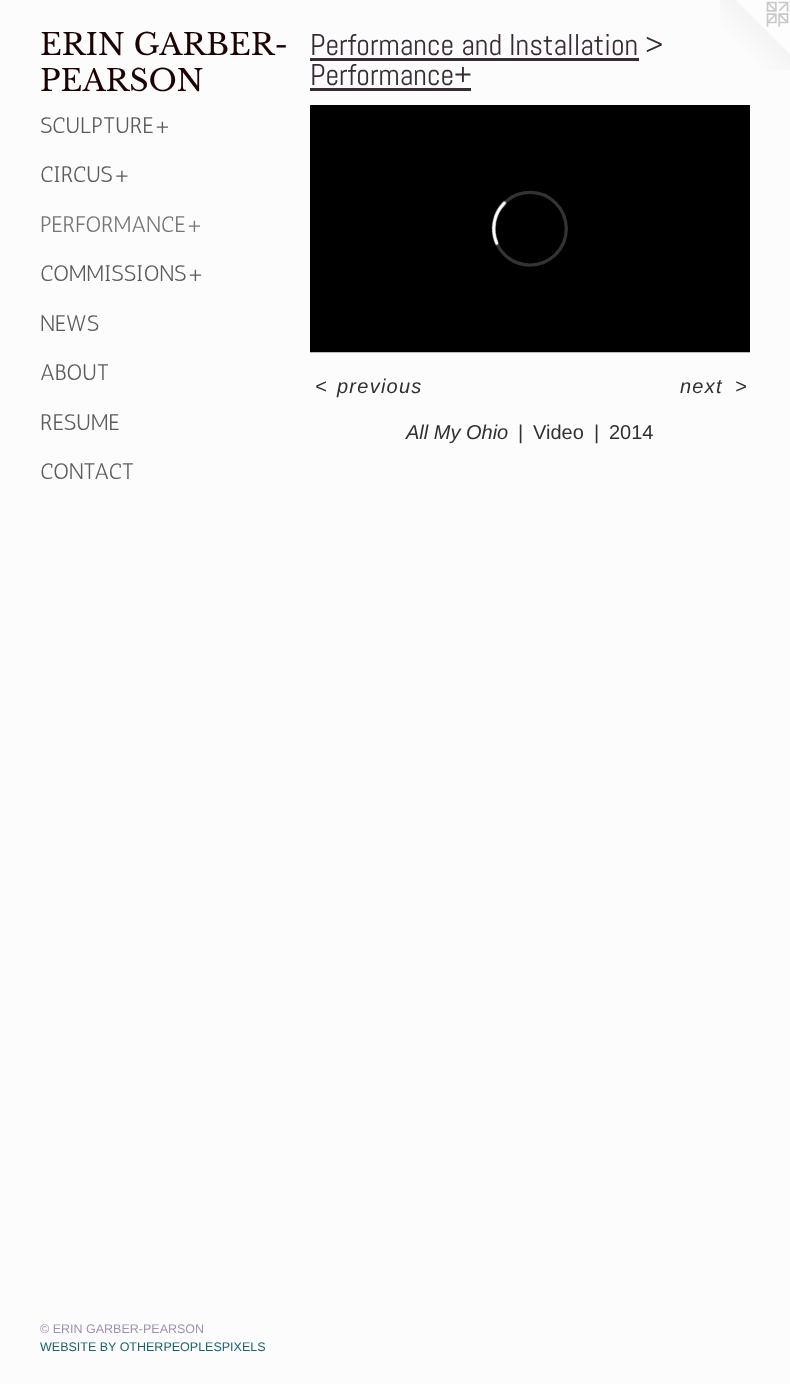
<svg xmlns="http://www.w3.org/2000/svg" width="790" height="1384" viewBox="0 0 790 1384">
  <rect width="100%" height="100%" fill="rgb(253,252,252)"/>
  <g font-family="Libre Baskerville" font-size="30" fill="rgb(27,3,3)">
    <text>
      <tspan x="40" y="55">ERIN GARBER-</tspan>
      <tspan x="40" y="91">PEARSON</tspan>
    </text>
  </g>
  <g font-family="Antic" font-size="22.5" fill="rgb(93,92,92)">
    <text x="40" y="133">SCULPTURE+</text>
    <text x="40" y="182">CIRCUS+</text>
  </g>
  <text x="40" y="232" font-family="Antic" font-size="22.5" fill="rgb(119,117,117)">PERFORMANCE+</text>
  <g font-family="Antic" font-size="22.5" fill="rgb(93,92,92)">
    <text x="40" y="281">COMMISSIONS+</text>
    <text x="40" y="331">NEWS</text>
    <text x="40" y="380">ABOUT</text>
    <text x="40" y="430">RESUME</text>
    <text x="40" y="479">CONTACT</text>
  </g>
  <text x="40" y="1333" font-family="Liberation Sans" font-size="12.5" fill="rgb(160,145,177)">© ERIN GARBER-PEARSON</text>
  <text x="40" y="1351" font-family="Liberation Sans" font-size="12.5" fill="rgb(27,99,111)">WEBSITE BY OTHERPEOPLESPIXELS</text>
  <text x="310" y="55" font-family="Abel" font-size="30" fill="rgb(57,43,54)">Performance and Installation &gt;</text>
  <rect x="310" y="58" width="329" height="3" fill="rgb(57,43,54)"/>
  <text x="310" y="85" font-family="Abel" font-size="30" fill="rgb(57,43,54)">Performance+</text>
  <rect x="310" y="88" width="161" height="3" fill="rgb(57,43,54)"/>
  <image x="310" y="105" width="440" height="248" href="pic1.png"/>
  <g font-family="Liberation Sans" font-size="20" font-style="italic" letter-spacing="1.25" fill="rgb(48,47,49)">
    <text x="315" y="393">&lt;</text>
    <text x="337" y="393">previous</text>
    <text x="680" y="393">next</text>
    <text x="735" y="393">&gt;</text>
  </g>
  <text x="406" y="439" font-family="Liberation Sans" font-size="20" font-style="italic" fill="rgb(48,47,49)">All My Ohio</text>
  <g font-family="Liberation Sans" font-size="20" fill="rgb(48,47,49)">
    <text x="518" y="439">|</text>
    <text x="533" y="439">Video</text>
    <text x="594" y="439">|</text>
    <text x="609" y="439">2014</text>
  </g>
  <image x="720" y="0" width="70" height="70" href="pic2.png"/>
</svg>
